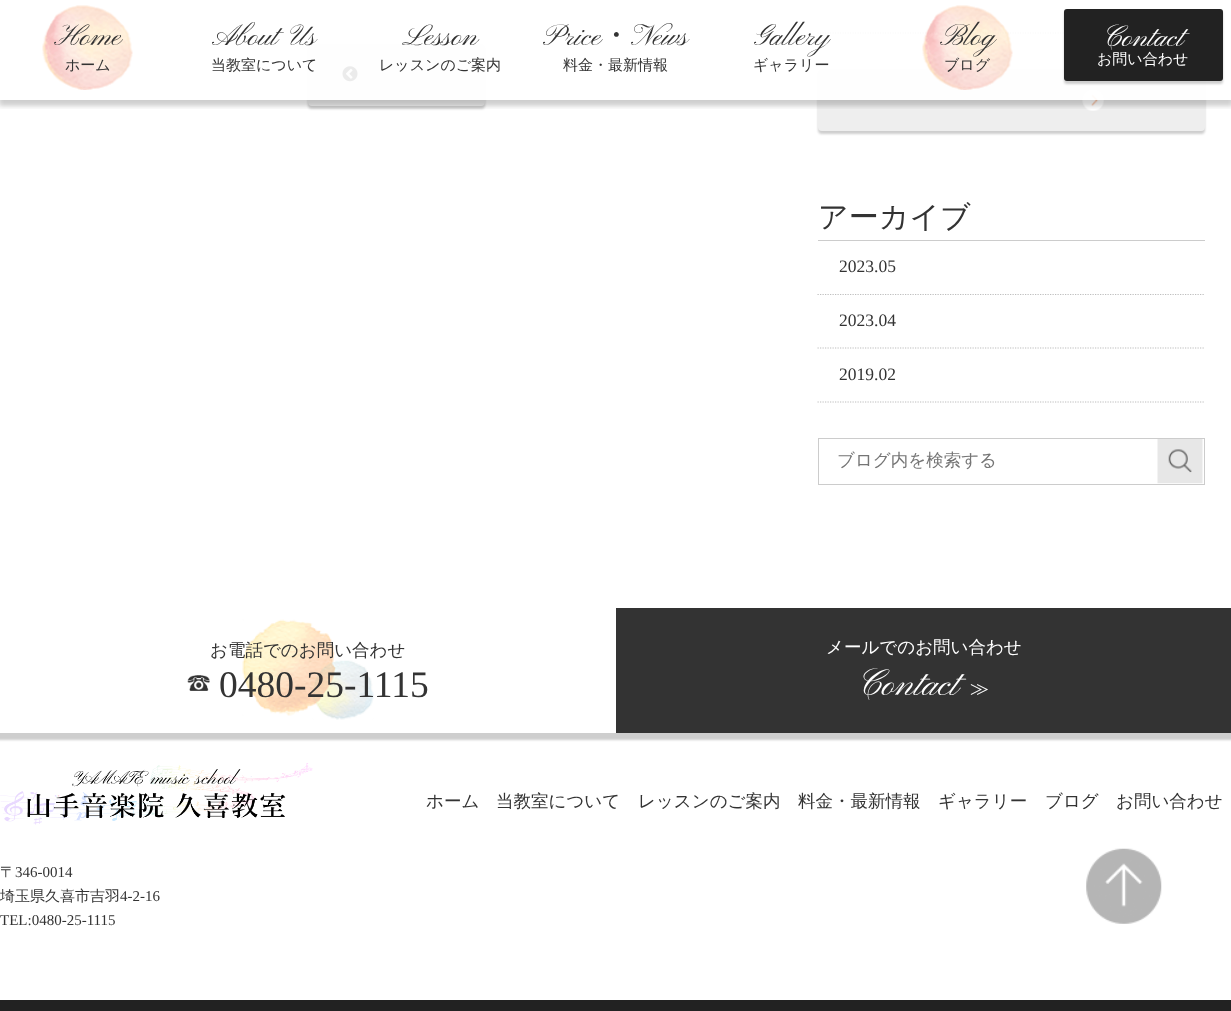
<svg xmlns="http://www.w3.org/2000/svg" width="1231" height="1011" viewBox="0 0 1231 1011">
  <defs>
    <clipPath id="clip1"><rect x="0" y="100" width="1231" height="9"/></clipPath>
    <clipPath id="clip2"><path d="M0 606H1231V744H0ZM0 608H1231V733H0Z" clip-rule="evenodd"/></clipPath>
  </defs>
  <rect width="100%" height="100%" fill="rgb(255,255,255)"/>
  <rect x="308" y="46" width="177" height="63" rx="4" fill="rgba(10,10,10,0.2)" filter="blur(1px)"/>
  <rect x="308" y="44" width="177" height="62" rx="4" fill="rgb(238,238,238)"/>
  <image x="342" y="66" width="16" height="16" href="pic3.png"/>
  <path d="M817.5 33H1205" fill="none" stroke="rgb(190,190,190)" stroke-width="1.2" stroke-dasharray="1.25 1.25"/>
  <rect x="818" y="71" width="387" height="63" rx="4" fill="rgba(10,10,10,0.2)" filter="blur(1px)"/>
  <rect x="818" y="69" width="387" height="62" rx="4" fill="rgb(238,238,238)"/>
  <image x="1082" y="89" width="22" height="22" href="pic4.png"/>
  <g clip-path="url(#clip1)">
    <rect x="-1" y="4" width="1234" height="102" fill="rgba(10,10,10,0.2)" filter="blur(2.5px)"/>
  </g>
  <rect x="306" y="32" width="901" height="68" fill="rgba(255,255,255,0.9)"/>
  <image x="42" y="5" width="91" height="85" href="pic1.png"/>
  <text x="54" y="45" font-family="Pinyon Script" font-size="30" fill="rgb(51,51,51)">Home</text>
  <text x="65" y="70" font-family="WenQuanYi Zen Hei" font-size="15" font-weight="500" fill="rgb(51,51,51)">ホーム</text>
  <text x="212" y="45" font-family="Pinyon Script" font-size="30" fill="rgb(51,51,51)">About Us</text>
  <text x="211" y="70" font-family="WenQuanYi Zen Hei" font-size="15" font-weight="500" fill="rgb(51,51,51)">当教室について</text>
  <text x="402" y="45" font-family="Pinyon Script" font-size="30" fill="rgb(51,51,51)">Lesson</text>
  <text x="379" y="70" font-family="WenQuanYi Zen Hei" font-size="15" font-weight="500" fill="rgb(51,51,51)">レッスンのご案内</text>
  <text x="543" y="45" font-family="Pinyon Script" font-size="30" fill="rgb(51,51,51)">Price</text>
  <text x="601" y="45" font-family="WenQuanYi Zen Hei" font-size="30" font-weight="500" fill="rgb(51,51,51)">・</text>
  <text x="631" y="45" font-family="Pinyon Script" font-size="30" fill="rgb(51,51,51)">News</text>
  <text x="563" y="70" font-family="WenQuanYi Zen Hei" font-size="15" font-weight="500" fill="rgb(51,51,51)">料金・最新情報</text>
  <text x="754" y="45" font-family="Pinyon Script" font-size="30" fill="rgb(51,51,51)">Gallery</text>
  <text x="753" y="70" font-family="WenQuanYi Zen Hei" font-size="15" font-weight="500" fill="rgb(51,51,51)">ギャラリー</text>
  <image x="922" y="5" width="91" height="85" href="pic2.png"/>
  <text x="940" y="45" font-family="Pinyon Script" font-size="30" fill="rgb(51,51,51)">Blog</text>
  <text x="944" y="70" font-family="WenQuanYi Zen Hei" font-size="15" font-weight="500" fill="rgb(51,51,51)">ブログ</text>
  <rect x="1064" y="11" width="159" height="73" rx="3" fill="rgba(10,10,10,0.2)" filter="blur(1px)"/>
  <rect x="1064" y="9" width="159" height="72" rx="3" fill="rgb(34,34,34)"/>
  <text x="1103" y="46" font-family="Pinyon Script" font-size="30" fill="rgb(255,255,255)">Contact</text>
  <text x="1097" y="64" font-family="WenQuanYi Zen Hei" font-size="15" font-weight="500" fill="rgb(255,255,255)">お問い合わせ</text>
  <rect x="818" y="240" width="387" height="1" fill="rgb(204,204,204)"/>
  <text x="818" y="227" font-family="WenQuanYi Zen Hei" font-size="30" font-weight="500" fill="rgb(51,51,51)">アーカイブ</text>
  <path d="M817.5 294.5H1205" fill="none" stroke="rgb(190,190,190)" stroke-width="1.2" stroke-dasharray="1.25 1.25"/>
  <text x="839" y="272" font-family="Liberation Serif" font-size="17.5" fill="rgb(51,51,51)">2023.05</text>
  <path d="M817.5 348H1205" fill="none" stroke="rgb(190,190,190)" stroke-width="1.2" stroke-dasharray="1.25 1.25"/>
  <text x="839" y="326" font-family="Liberation Serif" font-size="17.5" fill="rgb(51,51,51)">2023.04</text>
  <path d="M817.5 402H1205" fill="none" stroke="rgb(190,190,190)" stroke-width="1.2" stroke-dasharray="1.25 1.25"/>
  <text x="839" y="380" font-family="Liberation Serif" font-size="17.5" fill="rgb(51,51,51)">2019.02</text>
  <image x="1157" y="439" width="46" height="45" href="pic5.png"/>
  <rect x="818.5" y="438.5" width="386" height="46" fill="none" stroke="rgb(204,204,204)"/>
  <text x="837" y="466" font-family="WenQuanYi Zen Hei" font-size="17.5" font-weight="500" fill="rgb(117,117,117)">ブログ内を検索する</text>
  <g clip-path="url(#clip2)">
    <rect x="-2" y="610" width="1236" height="130" fill="rgba(10,10,10,0.2)" filter="blur(1px)"/>
  </g>
  <image x="242" y="619" width="132" height="101" href="pic6.png"/>
  <text x="210" y="656" font-family="WenQuanYi Zen Hei" font-size="17.5" font-weight="500" fill="rgb(51,51,51)">お電話でのお問い合わせ</text>
  <image x="187" y="675" width="23" height="16" href="pic7.png"/>
  <text x="219" y="697" font-family="Liberation Serif" font-size="37.5" fill="rgb(51,51,51)">0480-25-1115</text>
  <rect x="616" y="608" width="615" height="125" fill="rgb(51,51,51)"/>
  <text x="826" y="653" font-family="WenQuanYi Zen Hei" font-size="17.5" font-weight="500" fill="rgb(255,255,255)">メールでのお問い合わせ</text>
  <text x="858" y="695" font-family="Pinyon Script" font-size="37.5" fill="rgb(255,255,255)">Contact</text>
  <text x="970" y="695" font-family="WenQuanYi Zen Hei" font-size="19" font-weight="500" fill="rgb(255,255,255)">≫</text>
  <image x="0" y="763" width="313" height="62" href="pic8.png"/>
  <g font-family="WenQuanYi Zen Hei" font-size="17.5" font-weight="500" fill="rgb(51,51,51)">
    <text x="426" y="807">ホーム</text>
    <text x="496" y="807">当教室について</text>
    <text x="638" y="807">レッスンのご案内</text>
    <text x="798" y="807">料金・最新情報</text>
    <text x="938" y="807">ギャラリー</text>
    <text x="1045" y="807">ブログ</text>
    <text x="1116" y="807">お問い合わせ</text>
  </g>
  <text x="0" y="877" font-family="WenQuanYi Zen Hei" font-size="15" font-weight="500" fill="rgb(51,51,51)">〒</text>
  <text x="15" y="877" font-family="Liberation Serif" font-size="15" fill="rgb(51,51,51)">346-0014</text>
  <text x="0" y="901" font-family="WenQuanYi Zen Hei" font-size="15" font-weight="500" fill="rgb(51,51,51)">埼玉県久喜市吉羽</text>
  <g font-family="Liberation Serif" font-size="15" fill="rgb(51,51,51)">
    <text x="120" y="901">4-2-16</text>
    <text x="0" y="925">TEL:0480-25-1115</text>
  </g>
  <rect x="0" y="1000" width="1231" height="11" fill="rgb(34,34,34)"/>
  <image x="1086" y="848" width="76" height="76" href="pic9.png"/>
</svg>
